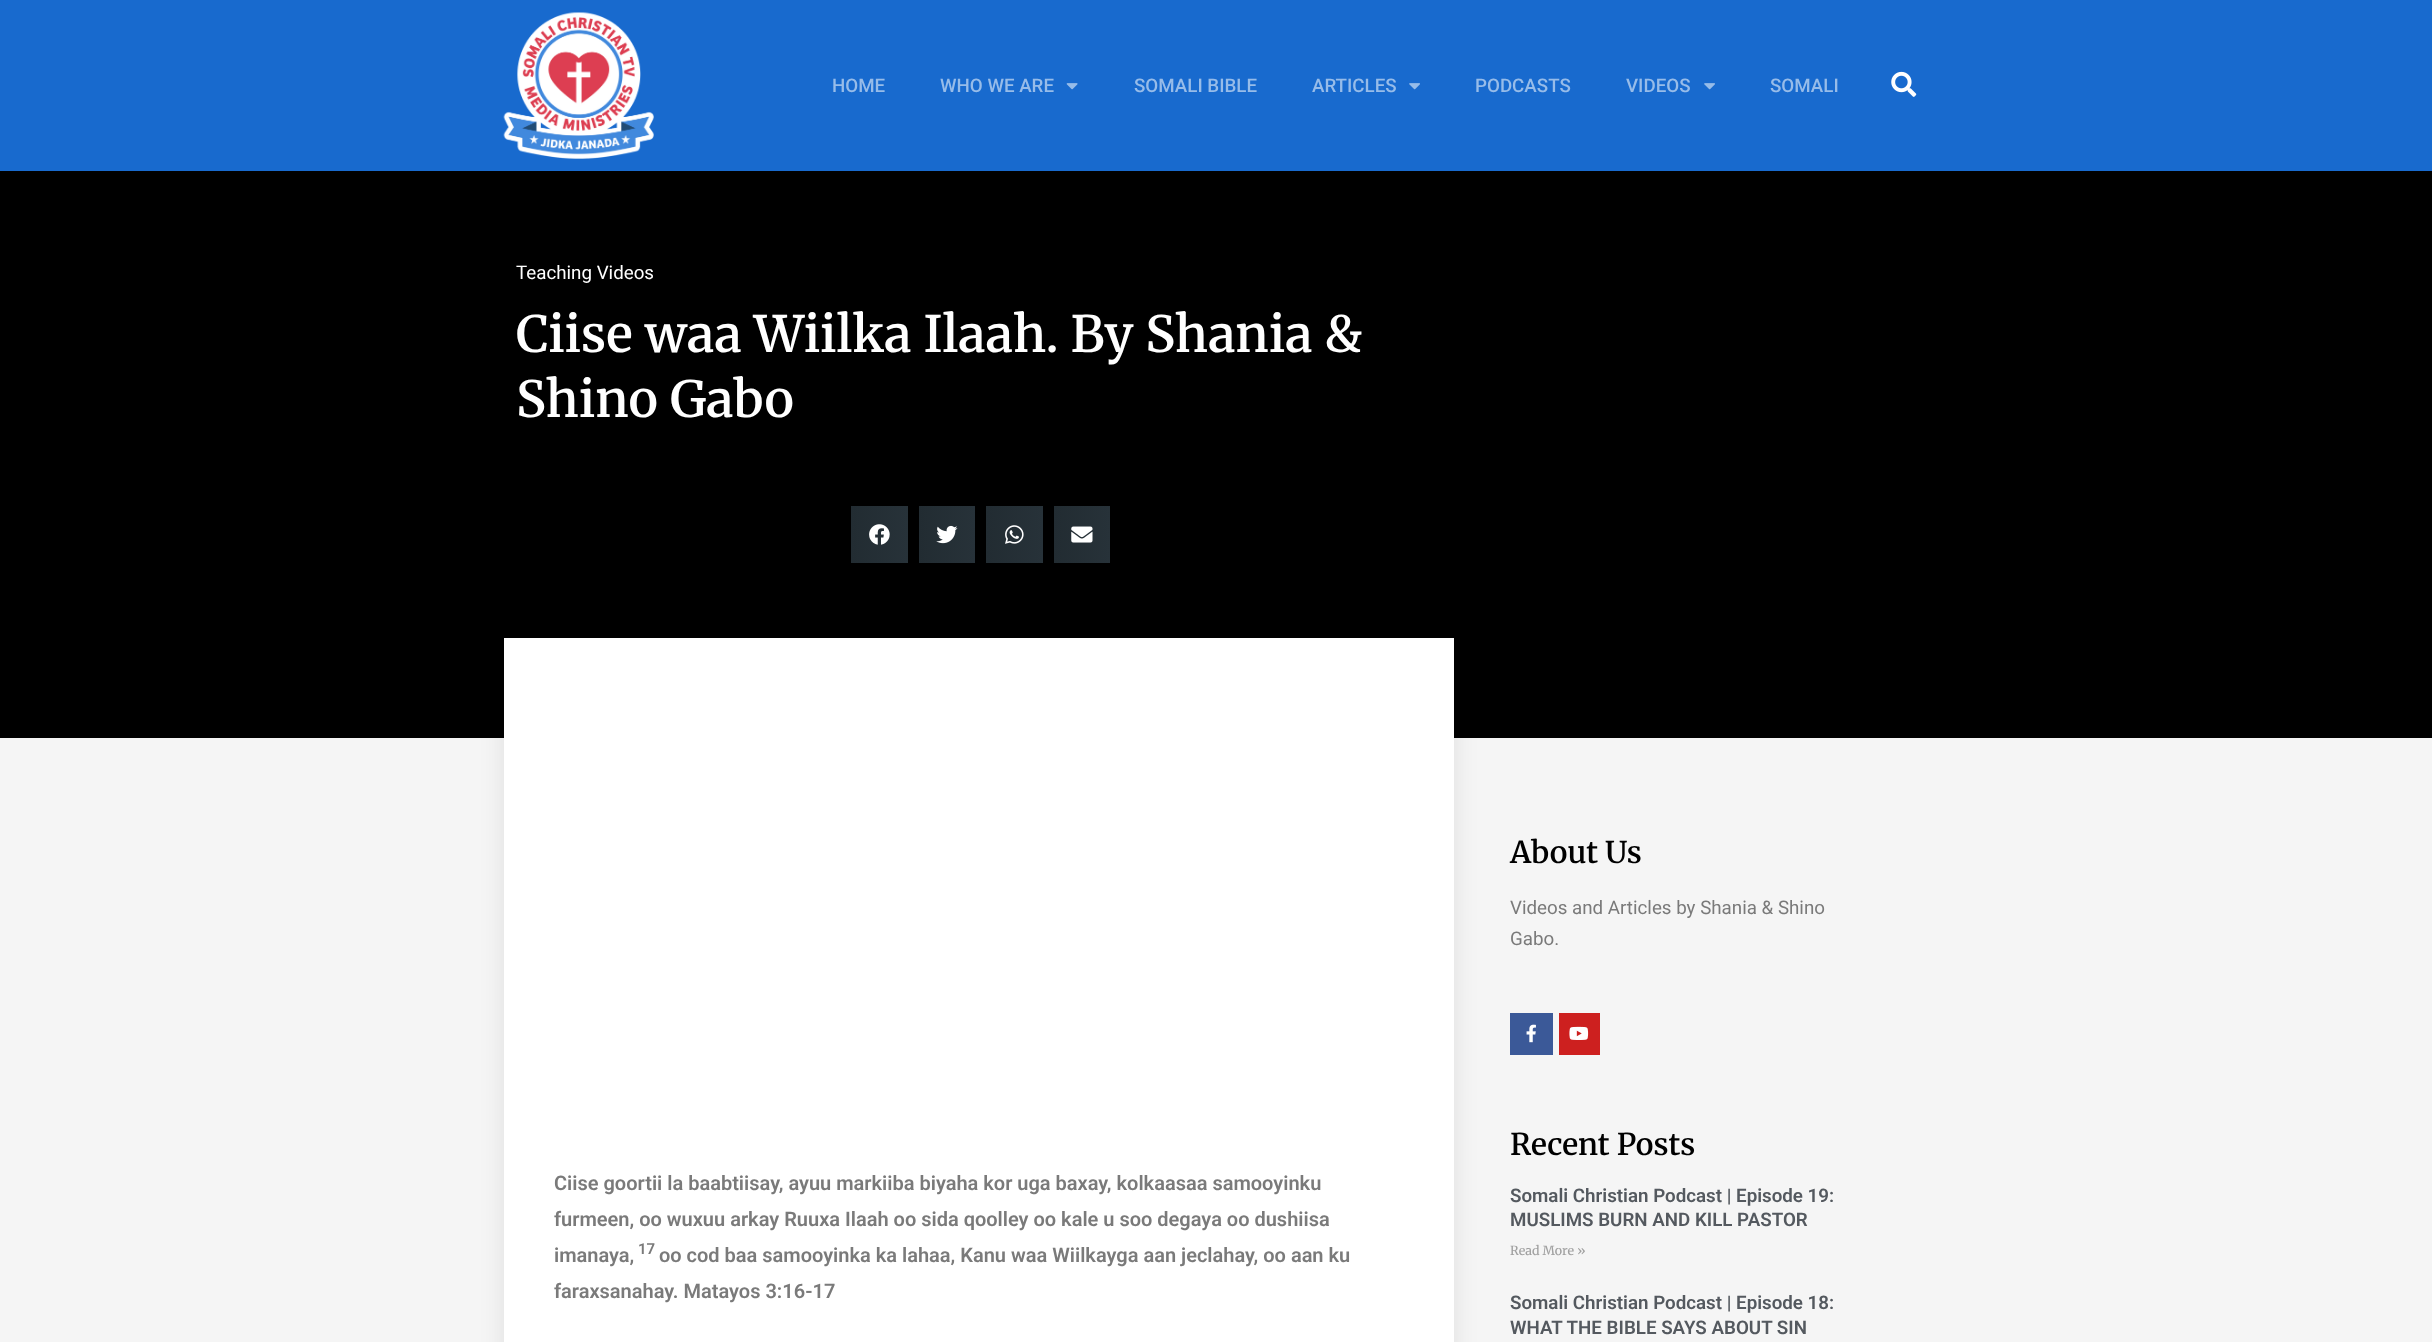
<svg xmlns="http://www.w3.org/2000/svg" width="2432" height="1342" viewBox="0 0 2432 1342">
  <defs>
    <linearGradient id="g1" gradientUnits="userSpaceOnUse" x1="851" y1="534" x2="908" y2="534"><stop offset="0" stop-color="rgb(34,44,50)"/><stop offset="1" stop-color="rgb(39,50,57)"/></linearGradient>
    <linearGradient id="g2" gradientUnits="userSpaceOnUse" x1="919" y1="534" x2="975" y2="534"><stop offset="0" stop-color="rgb(34,44,50)"/><stop offset="1" stop-color="rgb(39,50,57)"/></linearGradient>
    <linearGradient id="g3" gradientUnits="userSpaceOnUse" x1="986" y1="534" x2="1043" y2="534"><stop offset="0" stop-color="rgb(34,44,50)"/><stop offset="1" stop-color="rgb(39,50,57)"/></linearGradient>
    <linearGradient id="g4" gradientUnits="userSpaceOnUse" x1="1054" y1="534" x2="1110" y2="534"><stop offset="0" stop-color="rgb(34,44,50)"/><stop offset="1" stop-color="rgb(39,50,57)"/></linearGradient>
  </defs>
  <rect width="100%" height="100%" fill="rgb(245,245,245)"/>
  <rect x="0" y="0" width="2432" height="171" fill="rgb(24,106,206)"/>
  <image x="503" y="12" width="151" height="147" href="pic1.png"/>
  <g font-family="Roboto" font-size="18.75" font-weight="500" fill="rgb(151,188,233)">
    <text x="832" y="92">HOME</text>
    <text x="940" y="92">WHO WE ARE</text>
  </g>
  <image x="1066" y="83" width="12" height="7" href="pic2.png"/>
  <g font-family="Roboto" font-size="18.75" font-weight="500" fill="rgb(151,188,233)">
    <text x="1134" y="92">SOMALI BIBLE</text>
    <text x="1312" y="92">ARTICLES</text>
  </g>
  <image x="1409" y="83" width="11" height="7" href="pic3.png"/>
  <g font-family="Roboto" font-size="18.75" font-weight="500" fill="rgb(151,188,233)">
    <text x="1475" y="92">PODCASTS</text>
    <text x="1626" y="92">VIDEOS</text>
  </g>
  <image x="1704" y="83" width="11" height="7" href="pic3.png"/>
  <text x="1770" y="92" font-family="Roboto" font-size="18.75" font-weight="500" fill="rgb(151,188,233)">SOMALI</text>
  <image x="1891" y="71" width="26" height="26" href="pic4.png"/>
  <rect x="0" y="171" width="2432" height="567" fill="rgb(0,0,0)"/>
  <text x="516" y="279" font-family="Roboto" font-size="18.75" fill="rgb(255,255,255)">Teaching Videos</text>
  <g font-family="Merriweather" font-size="50" font-weight="600" fill="rgb(255,255,255)">
    <text>
      <tspan x="516" y="352">Ciise waa Wiilka Ilaah. By Shania &amp;</tspan>
      <tspan x="516" y="417">Shino Gabo</tspan>
    </text>
  </g>
  <rect x="851" y="506" width="57" height="57" fill="url(#g1)"/>
  <image x="869" y="524" width="21" height="21" href="pic5.png"/>
  <rect x="919" y="506" width="56" height="57" fill="url(#g2)"/>
  <image x="936" y="525" width="22" height="19" href="pic6.png"/>
  <rect x="986" y="506" width="57" height="57" fill="url(#g3)"/>
  <image x="1005" y="525" width="19" height="19" href="pic7.png"/>
  <rect x="1054" y="506" width="56" height="57" fill="url(#g4)"/>
  <image x="1071" y="526" width="22" height="17" href="pic8.png"/>
  <rect x="504" y="638" width="950" height="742" fill="rgba(0,0,0,0.09)" filter="blur(12.5px)"/>
  <rect x="504" y="638" width="950" height="704" fill="rgb(255,255,255)"/>
  <g font-family="Roboto" font-size="20" font-weight="600" fill="rgb(122,122,122)">
    <text>
      <tspan x="554" y="1190">Ciise goortii la baabtiisay, ayuu markiiba biyaha kor uga baxay, kolkaasaa samooyinku</tspan>
      <tspan x="554" y="1226">furmeen, oo wuxuu arkay Ruuxa Ilaah oo sida qoolley oo kale u soo degaya oo dushiisa</tspan>
      <tspan x="554" y="1262">imanaya,</tspan>
    </text>
  </g>
  <text x="638" y="1254" font-family="Roboto" font-size="15" font-weight="600" fill="rgb(122,122,122)">17</text>
  <g font-family="Roboto" font-size="20" font-weight="600" fill="rgb(122,122,122)">
    <text x="659" y="1262">oo cod baa samooyinka ka lahaa, Kanu waa Wiilkayga aan jeclahay, oo aan ku</text>
    <text x="554" y="1298">faraxsanahay. Matayos 3:16-17</text>
  </g>
  <text x="1510" y="863" font-family="Merriweather" font-size="30" font-weight="600" fill="rgb(0,0,0)">About Us</text>
  <g font-family="Roboto" font-size="18.75" fill="rgb(122,122,122)">
    <text>
      <tspan x="1510" y="914">Videos and Articles by Shania &amp; Shino</tspan>
      <tspan x="1510" y="945">Gabo.</tspan>
    </text>
  </g>
  <rect x="1510" y="1013" width="43" height="42" fill="rgb(59,89,152)"/>
  <image x="1526" y="1024" width="10" height="19" href="pic9.png"/>
  <rect x="1559" y="1013" width="41" height="42" fill="rgb(205,32,31)"/>
  <image x="1569" y="1026" width="20" height="14" href="pic10.png"/>
  <text x="1510" y="1155" font-family="Merriweather" font-size="30" font-weight="600" fill="rgb(0,0,0)">Recent Posts</text>
  <g font-family="Roboto" font-size="18.75" font-weight="600" fill="rgb(84,89,95)">
    <text>
      <tspan x="1510" y="1202">Somali Christian Podcast | Episode 19:</tspan>
      <tspan x="1510" y="1226">MUSLIMS BURN AND KILL PASTOR</tspan>
    </text>
  </g>
  <text x="1510" y="1255" font-family="Merriweather" font-size="12.5" font-weight="500" fill="rgb(160,160,160)">Read More »</text>
  <g font-family="Roboto" font-size="18.75" font-weight="600" fill="rgb(84,89,95)">
    <text>
      <tspan x="1510" y="1309">Somali Christian Podcast | Episode 18:</tspan>
      <tspan x="1510" y="1334">WHAT THE BIBLE SAYS ABOUT SIN</tspan>
    </text>
  </g>
</svg>
